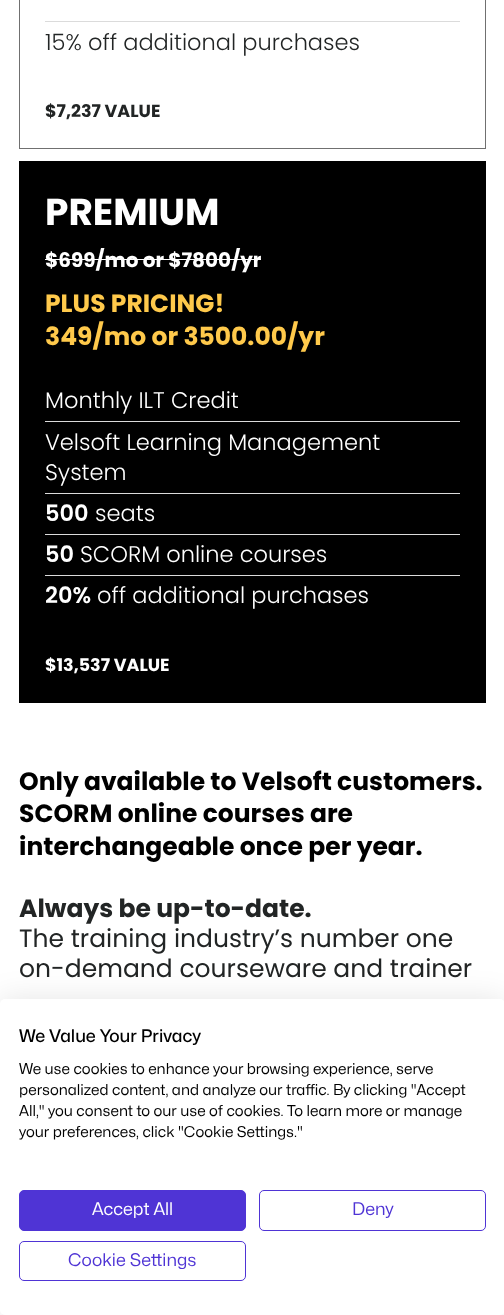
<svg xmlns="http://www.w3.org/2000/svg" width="504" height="1315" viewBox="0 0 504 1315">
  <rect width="100%" height="100%" fill="rgb(255,255,255)"/>
  <rect x="19.5" y="-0.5" width="466" height="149" fill="none" stroke="rgb(112,112,112)"/>
  <rect x="45" y="21" width="415" height="1" fill="rgb(219,219,219)"/>
  <text x="45" y="50" font-family="Poppins" font-size="22.5" font-weight="300" fill="rgb(34,37,37)">15% off additional purchases</text>
  <text x="45" y="117" font-family="Poppins" font-size="17.5" font-weight="bold" fill="rgb(34,37,37)">$7,237 VALUE</text>
  <rect x="19" y="161" width="467" height="542" fill="rgb(0,0,0)"/>
  <text x="45" y="225" font-family="Poppins" font-size="37.5" font-weight="bold" fill="rgb(255,255,255)">PREMIUM</text>
  <text x="45" y="267" font-family="Poppins" font-size="20" font-weight="bold" fill="rgb(255,255,255)">$699/mo or $7800/yr</text>
  <rect x="45" y="259" width="216" height="1" fill="rgb(255,255,255)"/>
  <g font-family="Poppins" font-size="25" font-weight="bold" fill="rgb(255,201,75)">
    <text>
      <tspan x="45" y="312">PLUS PRICING!</tspan>
      <tspan x="45" y="345">349/mo or 3500.00/yr</tspan>
    </text>
  </g>
  <rect x="45" y="421" width="415" height="1" fill="rgb(219,219,219)"/>
  <text x="45" y="408" font-family="Poppins" font-size="22.5" font-weight="300" fill="rgb(255,255,255)">Monthly ILT Credit</text>
  <rect x="45" y="493" width="415" height="1" fill="rgb(219,219,219)"/>
  <g font-family="Poppins" font-size="22.5" font-weight="300" fill="rgb(255,255,255)">
    <text>
      <tspan x="45" y="450">Velsoft Learning Management</tspan>
      <tspan x="45" y="480">System</tspan>
    </text>
  </g>
  <rect x="45" y="534" width="415" height="1" fill="rgb(219,219,219)"/>
  <text x="45" y="521" font-family="Poppins" font-size="22.5" font-weight="600" fill="rgb(255,255,255)">500</text>
  <text x="95" y="521" font-family="Poppins" font-size="22.5" font-weight="300" fill="rgb(255,255,255)">seats</text>
  <rect x="45" y="575" width="415" height="1" fill="rgb(219,219,219)"/>
  <text x="45" y="562" font-family="Poppins" font-size="22.5" font-weight="600" fill="rgb(255,255,255)">50</text>
  <text x="80" y="562" font-family="Poppins" font-size="22.5" font-weight="300" fill="rgb(255,255,255)">SCORM online courses</text>
  <text x="45" y="603" font-family="Poppins" font-size="22.5" font-weight="600" fill="rgb(255,255,255)">20%</text>
  <text x="97" y="603" font-family="Poppins" font-size="22.5" font-weight="300" fill="rgb(255,255,255)">off additional purchases</text>
  <text x="45" y="671" font-family="Poppins" font-size="17.5" font-weight="bold" fill="rgb(255,255,255)">$13,537 VALUE</text>
  <g font-family="Poppins" font-size="25" font-weight="bold" fill="rgb(0,0,0)">
    <text>
      <tspan x="19" y="790">Only available to Velsoft customers.</tspan>
      <tspan x="19" y="822">SCORM online courses are</tspan>
      <tspan x="19" y="855">interchangeable once per year.</tspan>
    </text>
  </g>
  <text x="19" y="917" font-family="Poppins" font-size="25" font-weight="bold" fill="rgb(34,37,37)">Always be up-to-date.</text>
  <g font-family="Poppins" font-size="25" fill="rgb(34,37,37)">
    <text>
      <tspan x="19" y="947">The training industry’s number one</tspan>
      <tspan x="19" y="977">on-demand courseware and trainer</tspan>
    </text>
  </g>
  <rect x="0" y="999" width="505" height="316" rx="5" fill="rgba(0,0,0,0.1)" filter="blur(15px)"/>
  <rect x="0" y="999" width="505" height="316" rx="5" fill="rgb(255,255,255)"/>
  <text x="19" y="1042" font-family="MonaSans" font-size="17.5" font-weight="500" fill="rgb(0,0,0)">We Value Your Privacy</text>
  <g font-family="MonaSans" font-size="15" font-style="italic" fill="rgb(0,0,0)">
    <text>
      <tspan x="19" y="1074">We use cookies to enhance your browsing experience, serve</tspan>
      <tspan x="19" y="1095">personalized content, and analyze our traffic. By clicking "Accept</tspan>
      <tspan x="19" y="1116">All," you consent to our use of cookies. To learn more or manage</tspan>
      <tspan x="19" y="1137">your preferences, click "Cookie Settings."</tspan>
    </text>
  </g>
  <rect x="19.5" y="1190.5" width="226" height="40" rx="4.5" fill="rgb(79,52,213)" stroke="rgb(79,52,213)"/>
  <text x="92" y="1215" font-family="MonaSans" font-size="17.5" font-style="italic" fill="rgb(255,255,255)">Accept All</text>
  <rect x="259.5" y="1190.5" width="226" height="40" rx="4.5" fill="none" stroke="rgb(79,52,213)"/>
  <text x="352" y="1215" font-family="MonaSans" font-size="17.5" font-style="italic" fill="rgb(79,52,213)">Deny</text>
  <rect x="19.5" y="1241.5" width="226" height="39" rx="4.5" fill="none" stroke="rgb(79,52,213)"/>
  <text x="68" y="1266" font-family="MonaSans" font-size="17.5" font-style="italic" fill="rgb(79,52,213)">Cookie Settings</text>
</svg>
